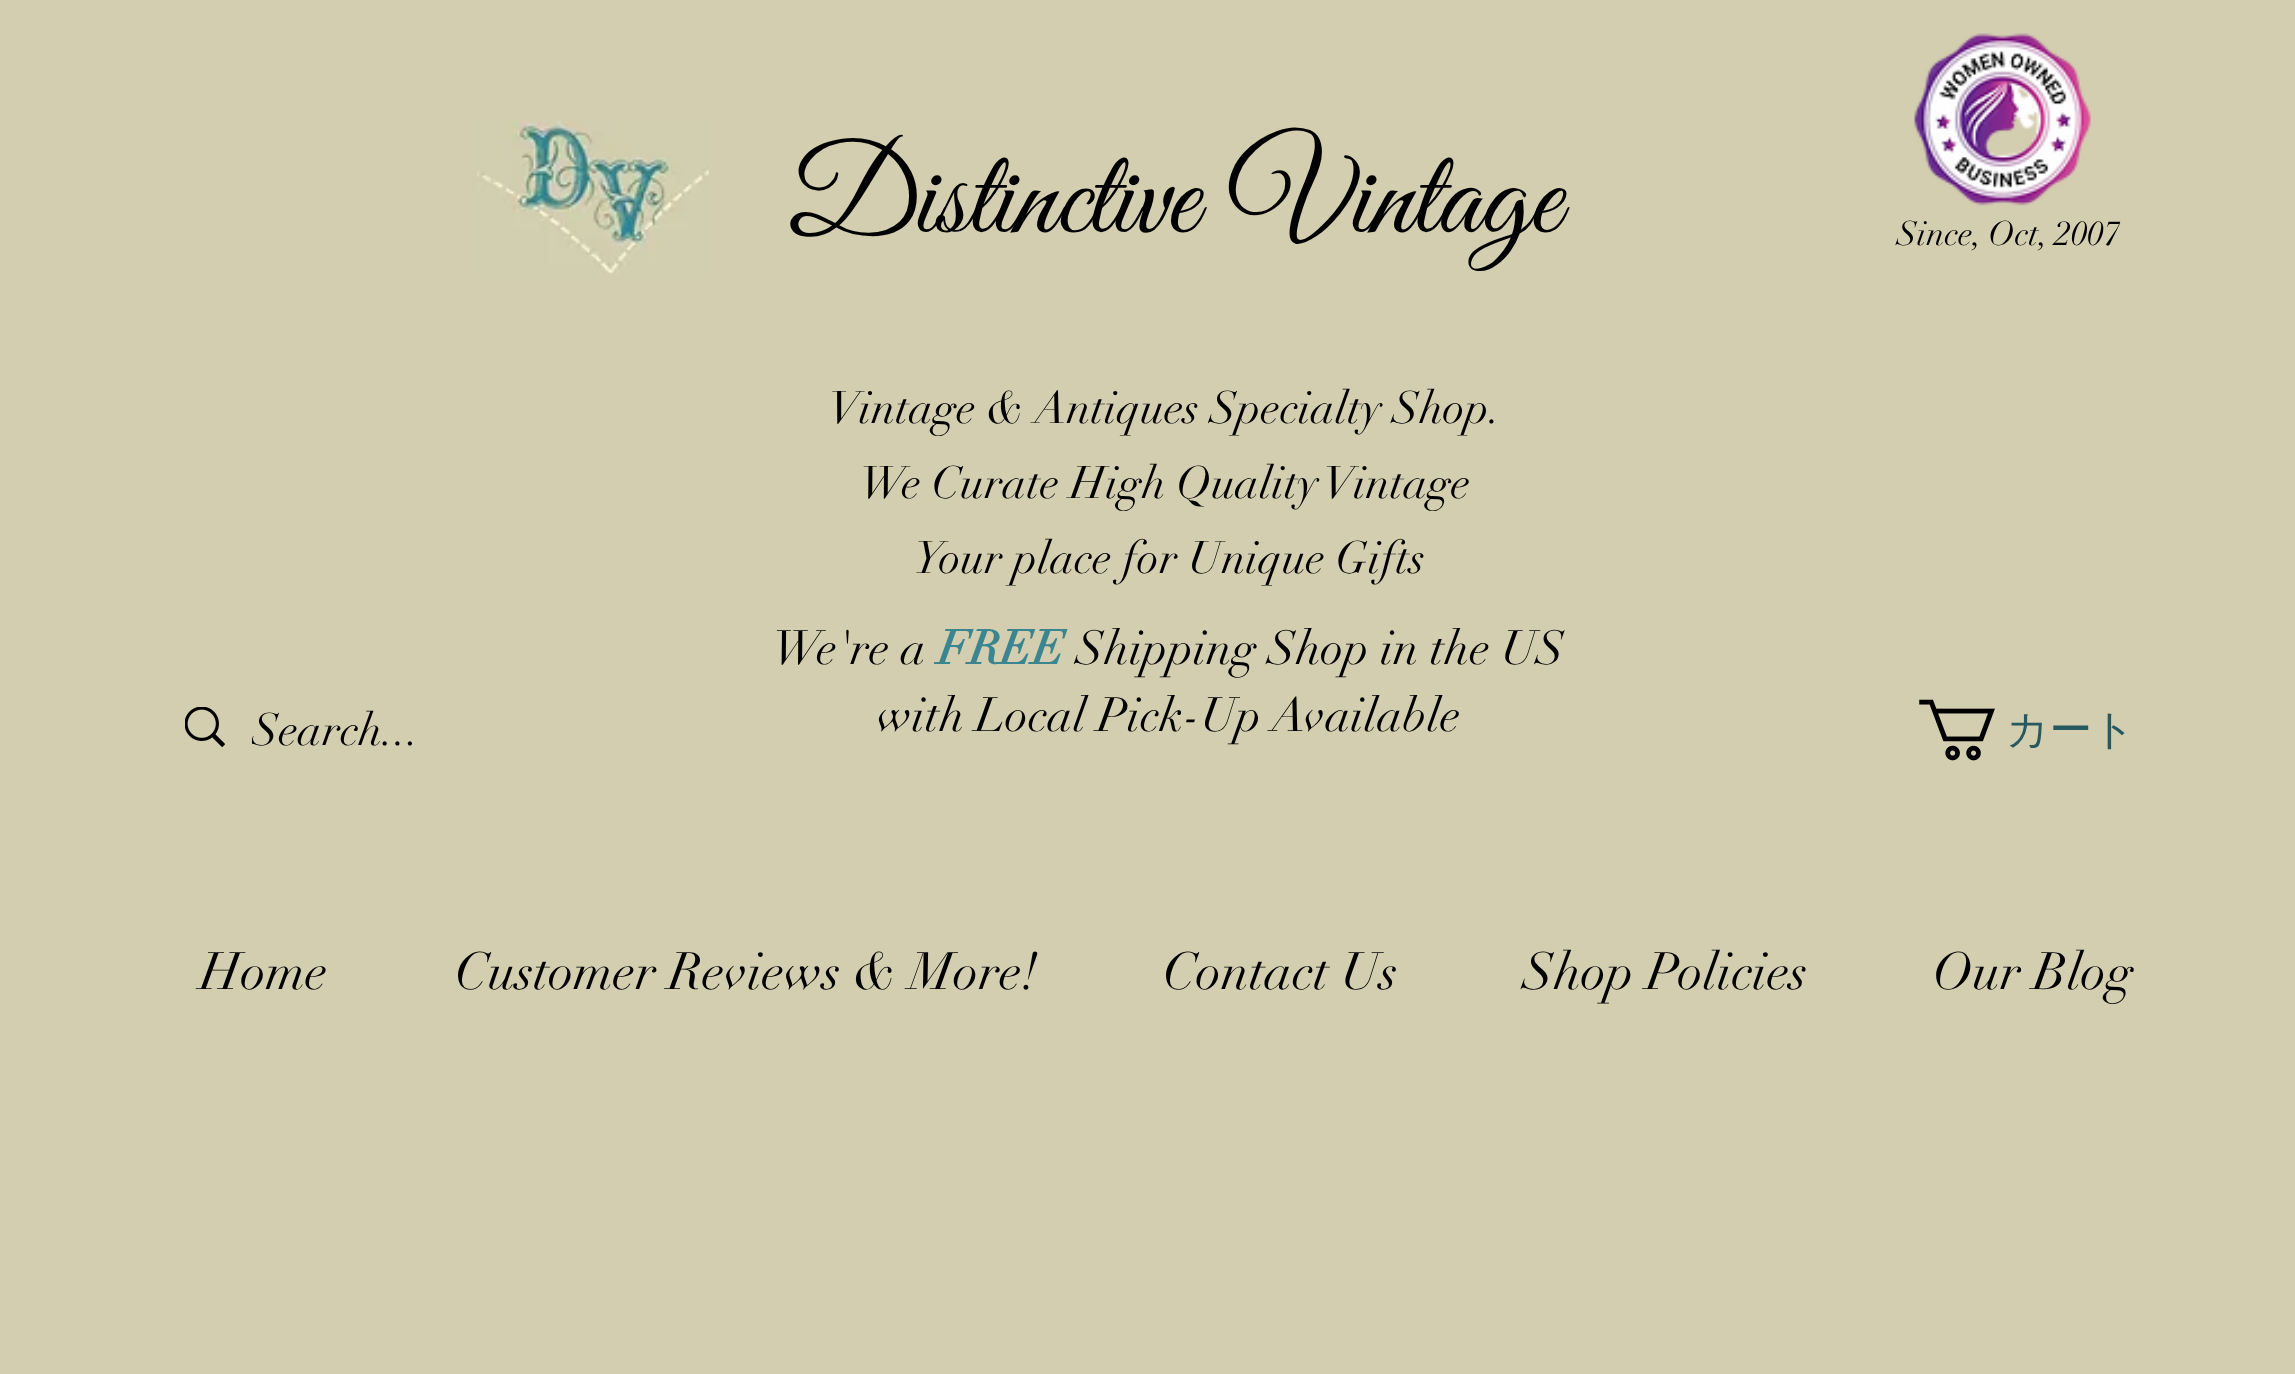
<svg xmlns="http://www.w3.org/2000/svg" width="2295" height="1374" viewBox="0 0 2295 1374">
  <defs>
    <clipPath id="clip1"><rect x="252" y="702" width="335" height="56"/></clipPath>
  </defs>
  <rect width="100%" height="100%" fill="rgb(212,206,176)"/>
  <image x="477" y="121" width="232" height="153" href="pic1.png"/>
  <text x="790" y="232" font-family="Great Vibes" font-size="123.75" fill="rgb(0,0,0)">Distinctive Vintage</text>
  <image x="1914" y="33" width="177" height="173" href="pic2.png"/>
  <text x="1897" y="245" font-family="didot" font-size="33.75" fill="rgb(0,0,0)">Since, Oct, 2007</text>
  <g font-family="didot" font-size="45" fill="rgb(0,0,0)">
    <text x="829" y="423">Vintage &amp; Antiques Specialty Shop.</text>
    <text x="860" y="498">We Curate High Quality Vintage</text>
    <text x="914" y="573">Your place for Unique Gifts</text>
  </g>
  <image x="185" y="707" width="40" height="40" href="pic3.png"/>
  <g clip-path="url(#clip1)">
    <text x="252" y="745" font-family="didot" font-size="45" fill="rgb(0,0,0)">Search...</text>
  </g>
  <text x="773" y="664" font-family="didot" font-size="47.25" fill="rgb(0,0,0)">We're a</text>
  <text x="938" y="664" font-family="didot" font-size="47.25" font-weight="bold" fill="rgb(58,133,144)">FREE</text>
  <g font-family="didot" font-size="47.25" fill="rgb(0,0,0)">
    <text x="1076" y="664">Shipping Shop in the US</text>
    <text x="877" y="731">with Local Pick-Up Available</text>
  </g>
  <image x="1919" y="699" width="76" height="62" href="pic4.png"/>
  <text x="2006" y="744" font-family="WenQuanYi Zen Hei" font-size="42.5" font-weight="500" fill="rgb(39,89,96)">カート</text>
  <g font-family="didot" font-size="51.75" fill="rgb(0,0,0)">
    <text x="200" y="989">Home</text>
    <text x="455" y="989">Customer Reviews &amp; More!</text>
    <text x="1163" y="989">Contact Us</text>
    <text x="1523" y="989">Shop Policies</text>
    <text x="1933" y="989">Our Blog</text>
  </g>
</svg>
